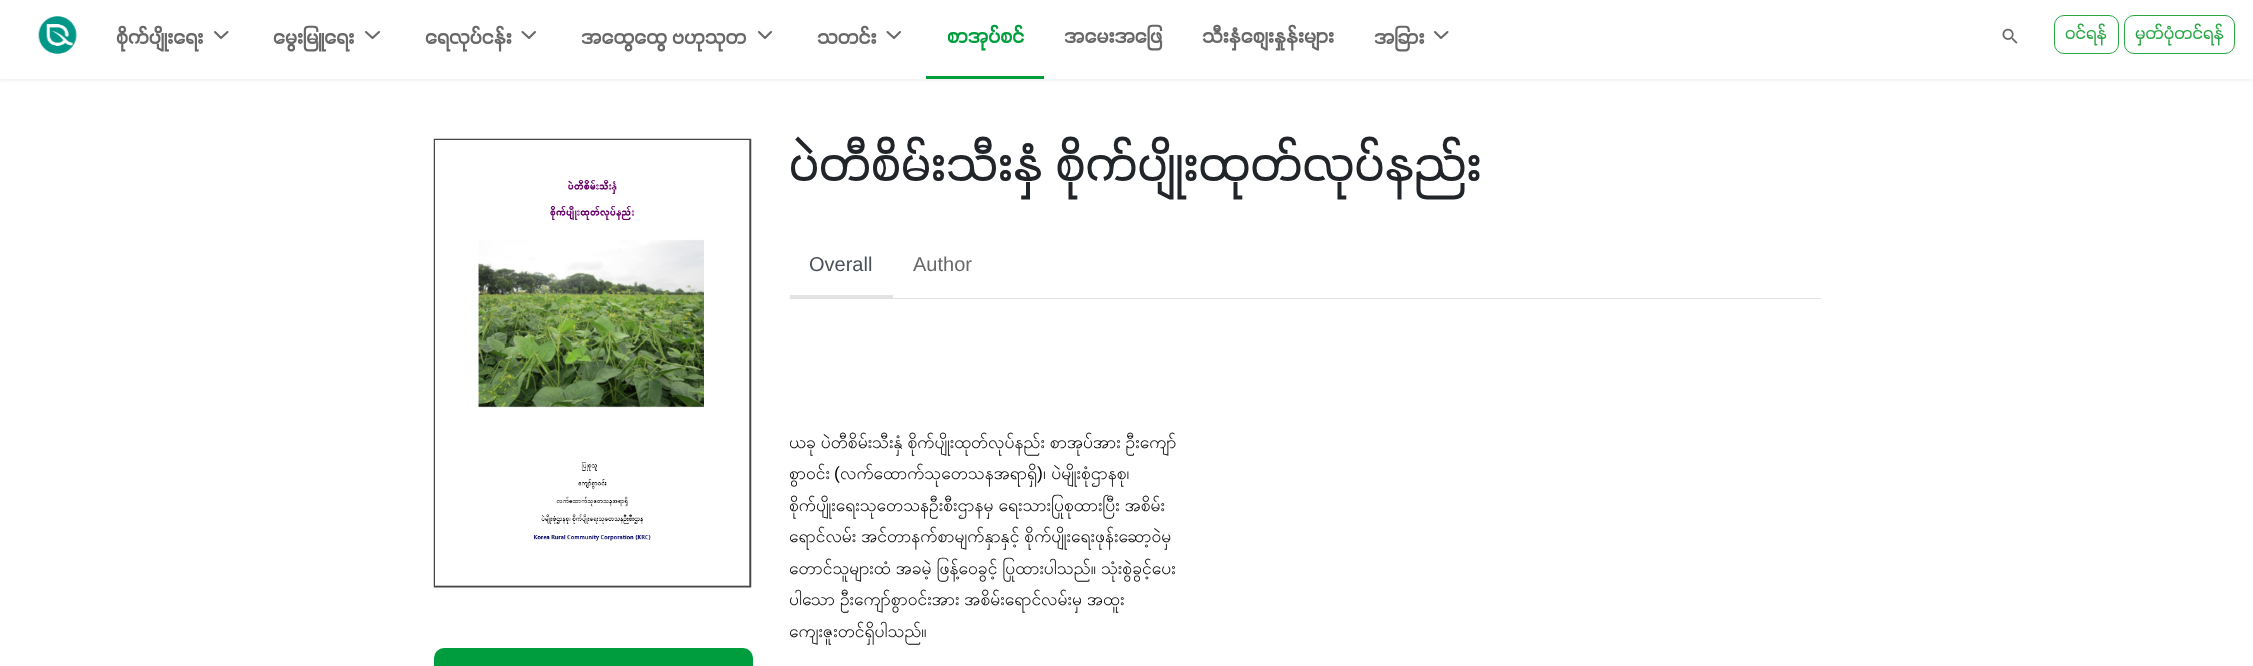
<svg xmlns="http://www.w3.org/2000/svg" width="2253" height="666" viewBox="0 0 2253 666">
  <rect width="100%" height="100%" fill="rgb(255,255,255)"/>
  <rect x="-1" y="3" width="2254" height="78" fill="rgba(0,0,0,0.05)" filter="blur(1px)"/>
  <rect x="0" y="2" width="2253" height="77" fill="rgb(255,255,255)"/>
  <image x="38" y="16" width="39" height="38" href="pic1.png"/>
  <text x="116" y="44" font-family="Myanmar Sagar" font-size="20" font-weight="bold" fill="rgb(104,104,104)">စိုက်ပျိုးရေး</text>
  <path d="M215 32L221 38L227.5 32" fill="none" stroke="rgb(104,104,104)" stroke-width="2.1" stroke-linecap="round" stroke-linejoin="round"/>
  <text x="273" y="44" font-family="Myanmar Sagar" font-size="20" font-weight="bold" fill="rgb(104,104,104)">မွေးမြူရေး</text>
  <path d="M366 32L372.5 38L379 32" fill="none" stroke="rgb(104,104,104)" stroke-width="2.1" stroke-linecap="round" stroke-linejoin="round"/>
  <text x="425" y="44" font-family="Myanmar Sagar" font-size="20" font-weight="bold" fill="rgb(104,104,104)">ရေလုပ်ငန်း</text>
  <path d="M522.5 32L529 38L535 32" fill="none" stroke="rgb(104,104,104)" stroke-width="2.1" stroke-linecap="round" stroke-linejoin="round"/>
  <text x="581" y="44" font-family="Myanmar Sagar" font-size="20" font-weight="bold" fill="rgb(104,104,104)">အထွေထွေ ဗဟုသုတ</text>
  <path d="M759 32L765 38L771 32" fill="none" stroke="rgb(104,104,104)" stroke-width="2.1" stroke-linecap="round" stroke-linejoin="round"/>
  <text x="817" y="44" font-family="Myanmar Sagar" font-size="20" font-weight="bold" fill="rgb(104,104,104)">သတင်း</text>
  <path d="M887.5 32L894 38L900 32" fill="none" stroke="rgb(104,104,104)" stroke-width="2.1" stroke-linecap="round" stroke-linejoin="round"/>
  <rect x="926" y="76" width="118" height="3" fill="rgb(0,157,62)"/>
  <text x="947" y="43" font-family="Myanmar Sagar" font-size="20" font-weight="bold" fill="rgb(0,157,62)">စာအုပ်စင်</text>
  <g font-family="Myanmar Sagar" font-size="20" font-weight="bold" fill="rgb(104,104,104)">
    <text x="1064" y="43">အမေးအဖြေ</text>
    <text x="1202" y="43">သီးနှံစျေးနှုန်းများ</text>
    <text x="1374" y="44">အခြား</text>
  </g>
  <path d="M1435 32L1441 38L1447.5 32" fill="none" stroke="rgb(104,104,104)" stroke-width="2.1" stroke-linecap="round" stroke-linejoin="round"/>
  <image x="2002" y="28" width="16" height="16" href="pic2.png"/>
  <rect x="2054.5" y="15.5" width="64" height="38" rx="9.5" fill="none" stroke="rgb(40,167,69)"/>
  <text x="2065" y="39" font-family="Myanmar Sagar" font-size="17.5" fill="rgb(40,167,69)">ဝင်ရန်</text>
  <rect x="2124.5" y="15.5" width="110" height="38" rx="9.5" fill="none" stroke="rgb(40,167,69)"/>
  <text x="2135" y="39" font-family="Myanmar Sagar" font-size="17.5" fill="rgb(40,167,69)">မှတ်ပုံတင်ရန်</text>
  <image x="433" y="138" width="319" height="450" href="pic3.png"/>
  <rect x="434" y="648" width="319" height="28" rx="10" fill="rgb(0,157,62)"/>
  <text x="789" y="181" font-family="Myanmar Sagar" font-size="50" fill="rgb(33,37,41)">ပဲတီစိမ်းသီးနှံ စိုက်ပျိုးထုတ်လုပ်နည်း</text>
  <rect x="790" y="298" width="1031" height="1" fill="rgb(222,226,230)"/>
  <rect x="790" y="295" width="103" height="3" fill="rgb(227,227,227)"/>
  <text x="809" y="271" font-family="Liberation Sans" font-size="20" fill="rgb(73,80,87)">Overall</text>
  <text x="913" y="271" font-family="Liberation Sans" font-size="20" fill="rgb(104,104,104)">Author</text>
  <g font-family="Padauk" font-size="17.5" fill="rgb(0,0,0)">
    <text>
      <tspan x="789" y="448" word-spacing="-1.5">ယခု ပဲတီစိမ်းသီးနှံ စိုက်ပျိုးထုတ်လုပ်နည်း စာအုပ်အား ဦးကျော်</tspan>
      <tspan x="789" y="479">စွာဝင်း</tspan>
    </text>
  </g>
  <text x="834" y="479" font-family="Liberation Sans" font-size="17.5" fill="rgb(0,0,0)">(</text>
  <text x="840" y="479" font-family="Padauk" font-size="17.5" fill="rgb(0,0,0)">လက်ထောက်သုတေသနအရာရှိ</text>
  <text x="1037" y="479" font-family="Liberation Sans" font-size="17.5" fill="rgb(0,0,0)">)</text>
  <g font-family="Padauk" font-size="17.5" fill="rgb(0,0,0)">
    <text x="1043" y="479" word-spacing="-1">၊ ပဲမျိုးစုံဌာနစု၊</text>
    <text>
      <tspan x="789" y="511" word-spacing="-1.5">စိုက်ပျိုးရေးသုတေသနဦးစီးဌာနမှ ရေးသားပြုစုထားပြီး အစိမ်း</tspan>
      <tspan x="789" y="542" word-spacing="-1.5">ရောင်လမ်း အင်တာနက်စာမျက်နှာနှင့် စိုက်ပျိုးရေးဖုန်းဆော့ဝဲမှ</tspan>
      <tspan x="789" y="574" word-spacing="-1.5">တောင်သူများထံ အခမဲ့ ဖြန့်ဝေခွင့် ပြုထားပါသည်။ သုံးစွဲခွင့်ပေး</tspan>
      <tspan x="789" y="605" word-spacing="-1.5">ပါသော ဦးကျော်စွာဝင်းအား အစိမ်းရောင်လမ်းမှ အထူး</tspan>
      <tspan x="789" y="637">ကျေးဇူးတင်ရှိပါသည်။</tspan>
    </text>
  </g>
</svg>
